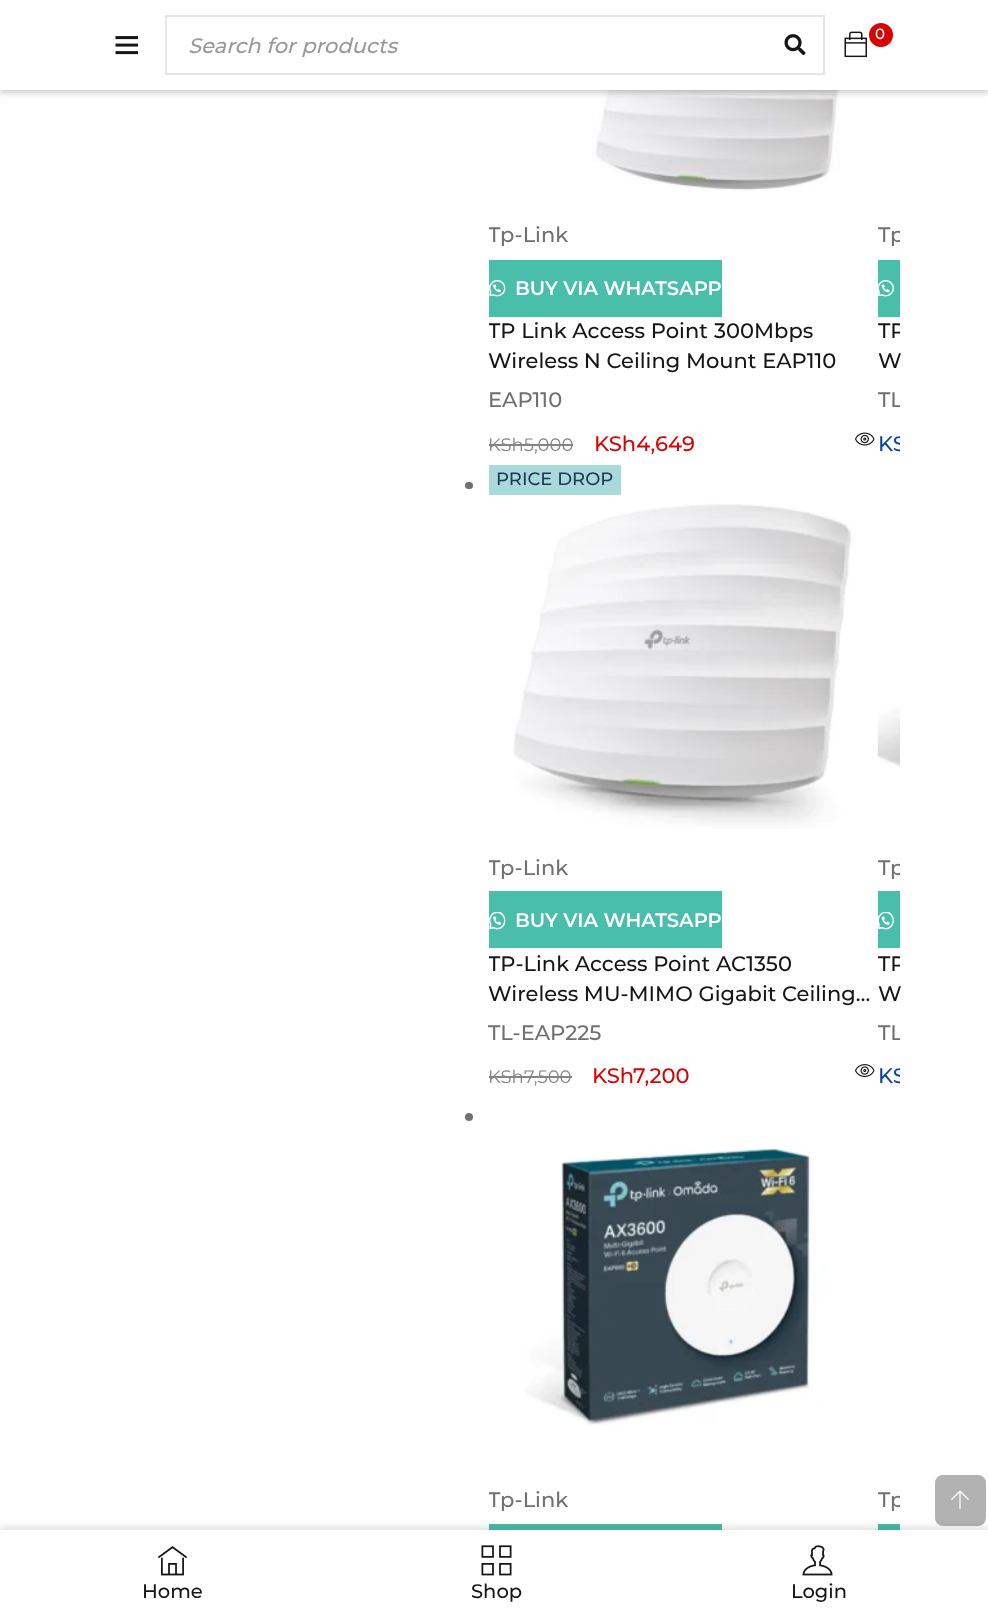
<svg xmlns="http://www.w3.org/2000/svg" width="988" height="1612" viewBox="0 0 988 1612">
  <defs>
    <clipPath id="clip1"><rect x="489" y="221" width="387" height="30"/></clipPath>
    <clipPath id="clip2"><rect x="489" y="317" width="387" height="60"/></clipPath>
    <clipPath id="clip3"><rect x="878" y="221" width="22" height="30"/></clipPath>
    <clipPath id="clip4"><rect x="878" y="317" width="22" height="60"/></clipPath>
    <clipPath id="clip5"><rect x="90" y="0" width="810" height="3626"/></clipPath>
    <clipPath id="clip6"><rect x="489" y="852" width="387" height="30"/></clipPath>
    <clipPath id="clip7"><rect x="489" y="948" width="387" height="60"/></clipPath>
    <clipPath id="clip8"><rect x="878" y="852" width="22" height="30"/></clipPath>
    <clipPath id="clip9"><rect x="878" y="948" width="22" height="60"/></clipPath>
    <clipPath id="clip10"><rect x="489" y="1485" width="387" height="30"/></clipPath>
    <clipPath id="clip11"><rect x="878" y="1485" width="22" height="30"/></clipPath>
  </defs>
  <rect width="100%" height="100%" fill="rgb(255,255,255)"/>
  <image x="514" y="90" width="334" height="101" href="pic4.png"/>
  <rect x="0" y="3" width="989" height="90" fill="rgba(0,0,0,0.2)" filter="blur(3px)"/>
  <rect x="0" y="0" width="988" height="90" fill="rgb(255,255,255)"/>
  <image x="844" y="31" width="23" height="27" href="pic1.png"/>
  <circle cx="881" cy="35" r="12" fill="rgb(214,4,4)"/>
  <text x="875" y="39" font-family="Montserrat" font-size="15" font-weight="500" fill="rgb(255,255,255)">0</text>
  <image x="115" y="36" width="23" height="19" href="pic2.png"/>
  <rect x="166" y="16" width="658" height="58" fill="none" stroke="rgb(229,229,229)" stroke-width="2"/>
  <text x="188" y="53" font-family="Montserrat" font-size="21" font-weight="500" font-style="italic" fill="rgb(153,153,153)">Search for products</text>
  <image x="784" y="34" width="22" height="22" href="pic3.png"/>
  <g clip-path="url(#clip1)">
    <text x="488" y="242" font-family="Montserrat" font-size="21" font-weight="500" fill="rgb(112,112,112)">Tp-Link</text>
  </g>
  <rect x="489" y="260" width="233" height="57" fill="rgb(73,190,170)"/>
  <image x="489" y="280" width="17" height="17" href="pic5.png"/>
  <text x="515" y="295" font-family="Montserrat" font-size="19.5" font-weight="600" fill="rgb(255,255,255)">BUY VIA WHATSAPP</text>
  <g clip-path="url(#clip2)">
    <text x="488" y="338" font-family="Montserrat" font-size="21" font-weight="500" fill="rgb(22,22,22)">TP Link Access Point</text>
  </g>
  <g font-family="Montserrat" font-size="21" font-weight="500" fill="rgb(22,22,22)">
    <text x="714" y="338">300Mbps</text>
    <text x="488" y="368">Wireless N Ceiling Mount EAP110</text>
  </g>
  <text x="488" y="407" font-family="Montserrat" font-size="21" font-weight="500" fill="rgb(112,112,112)">EAP110</text>
  <text x="488" y="451" font-family="Montserrat" font-size="18" fill="rgb(132,132,132)">KSh5,000</text>
  <rect x="489" y="444" width="84" height="2" fill="rgb(132,132,132)"/>
  <text x="594" y="451" font-family="Montserrat" font-size="21" font-weight="500" fill="rgb(214,4,4)">KSh4,649</text>
  <image x="855" y="432" width="20" height="14" href="pic6.png"/>
  <g clip-path="url(#clip3)">
    <text x="878" y="242" font-family="Montserrat" font-size="21" font-weight="500" fill="rgb(112,112,112)">Tp</text>
  </g>
  <rect x="878" y="260" width="22" height="57" fill="rgb(73,190,170)"/>
  <image x="878" y="280" width="16" height="17" href="pic7.png"/>
  <g clip-path="url(#clip4)">
    <text x="878" y="338" font-family="Montserrat" font-size="21" font-weight="500" fill="rgb(22,22,22)">TP</text>
  </g>
  <text x="878" y="368" font-family="Montserrat" font-size="21" font-weight="500" fill="rgb(22,22,22)">W</text>
  <g clip-path="url(#clip5)">
    <text x="878" y="407" font-family="Montserrat" font-size="21" font-weight="500" fill="rgb(112,112,112)">TL</text>
    <text x="878" y="451" font-family="Montserrat" font-size="21" font-weight="500" fill="rgb(13,71,161)">KS</text>
  </g>
  <rect x="465" y="482" width="8" height="7" rx="3.5" fill="rgb(112,112,112)"/>
  <image x="513" y="482" width="348" height="347" href="pic8.png"/>
  <rect x="489" y="465" width="132" height="30" fill="rgb(168,218,220)"/>
  <text x="496" y="485" font-family="Montserrat" font-size="18" font-weight="500" fill="rgb(29,53,87)">PRICE DROP</text>
  <g clip-path="url(#clip6)">
    <text x="488" y="875" font-family="Montserrat" font-size="21" font-weight="500" fill="rgb(112,112,112)">Tp-Link</text>
  </g>
  <rect x="489" y="891" width="233" height="57" fill="rgb(73,190,170)"/>
  <image x="489" y="912" width="17" height="18" href="pic9.png"/>
  <text x="515" y="927" font-family="Montserrat" font-size="19.5" font-weight="600" fill="rgb(255,255,255)">BUY VIA WHATSAPP</text>
  <g clip-path="url(#clip7)">
    <text x="488" y="971" font-family="Montserrat" font-size="21" font-weight="500" fill="rgb(22,22,22)">TP-Link Access Point AC1350</text>
  </g>
  <text x="488" y="1001" font-family="Montserrat" font-size="21" font-weight="500" fill="rgb(22,22,22)">Wireless MU-MIMO Gigabit Ceiling…</text>
  <text x="488" y="1040" font-family="Montserrat" font-size="21" font-weight="500" fill="rgb(112,112,112)">TL-EAP225</text>
  <text x="488" y="1083" font-family="Montserrat" font-size="18" fill="rgb(132,132,132)">KSh</text>
  <rect x="489" y="1076" width="35" height="2" fill="rgb(132,132,132)"/>
  <rect x="524" y="1076" width="48" height="2" fill="rgb(132,132,132)"/>
  <text x="524" y="1083" font-family="Montserrat" font-size="18" fill="rgb(132,132,132)">7,500</text>
  <g font-family="Montserrat" font-size="21" font-weight="500" fill="rgb(214,4,4)">
    <text x="592" y="1083">KSh</text>
    <text x="633" y="1083">7,200</text>
  </g>
  <image x="855" y="1064" width="20" height="13" href="pic10.png"/>
  <image x="877" y="708" width="23" height="59" href="pic11.png"/>
  <g clip-path="url(#clip8)">
    <text x="878" y="875" font-family="Montserrat" font-size="21" font-weight="500" fill="rgb(112,112,112)">Tp</text>
  </g>
  <rect x="878" y="891" width="22" height="57" fill="rgb(73,190,170)"/>
  <image x="878" y="912" width="16" height="18" href="pic12.png"/>
  <g clip-path="url(#clip9)">
    <text x="878" y="971" font-family="Montserrat" font-size="21" font-weight="500" fill="rgb(22,22,22)">TP</text>
  </g>
  <text x="878" y="1001" font-family="Montserrat" font-size="21" font-weight="500" fill="rgb(22,22,22)">W</text>
  <g clip-path="url(#clip5)">
    <text x="878" y="1040" font-family="Montserrat" font-size="21" font-weight="500" fill="rgb(112,112,112)">TL</text>
    <text x="878" y="1083" font-family="Montserrat" font-size="21" font-weight="500" fill="rgb(13,71,161)">KS</text>
  </g>
  <circle cx="469" cy="1117" r="4" fill="rgb(112,112,112)"/>
  <image x="525" y="1113" width="336" height="313" href="pic13.png"/>
  <g clip-path="url(#clip10)">
    <text x="488" y="1507" font-family="Montserrat" font-size="21" font-weight="500" fill="rgb(112,112,112)">Tp-Link</text>
  </g>
  <rect x="489" y="1524" width="233" height="6" fill="rgb(73,190,170)"/>
  <g clip-path="url(#clip11)">
    <text x="878" y="1507" font-family="Montserrat" font-size="21" font-weight="500" fill="rgb(112,112,112)">Tp</text>
  </g>
  <rect x="878" y="1524" width="22" height="6" fill="rgb(73,190,170)"/>
  <rect x="0" y="1526" width="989" height="82" fill="rgba(0,0,0,0.1)" filter="blur(3px)"/>
  <rect x="935" y="1475" width="51" height="51" rx="8" fill="rgba(0,0,0,0.3)"/>
  <image x="951" y="1490" width="18" height="19" href="pic14.png"/>
  <rect x="0" y="1530" width="988" height="82" fill="rgb(255,255,255)"/>
  <image x="157" y="1546" width="31" height="30" href="pic15.png"/>
  <text x="142" y="1598" font-family="Montserrat" font-size="19.5" font-weight="500" fill="rgb(22,22,22)">Home</text>
  <image x="481" y="1545" width="31" height="31" href="pic16.png"/>
  <text x="471" y="1598" font-family="Montserrat" font-size="19.5" font-weight="500" fill="rgb(22,22,22)">Shop</text>
  <image x="802" y="1545" width="31" height="31" href="pic17.png"/>
  <text x="791" y="1598" font-family="Montserrat" font-size="19.5" font-weight="500" fill="rgb(22,22,22)">Login</text>
</svg>
